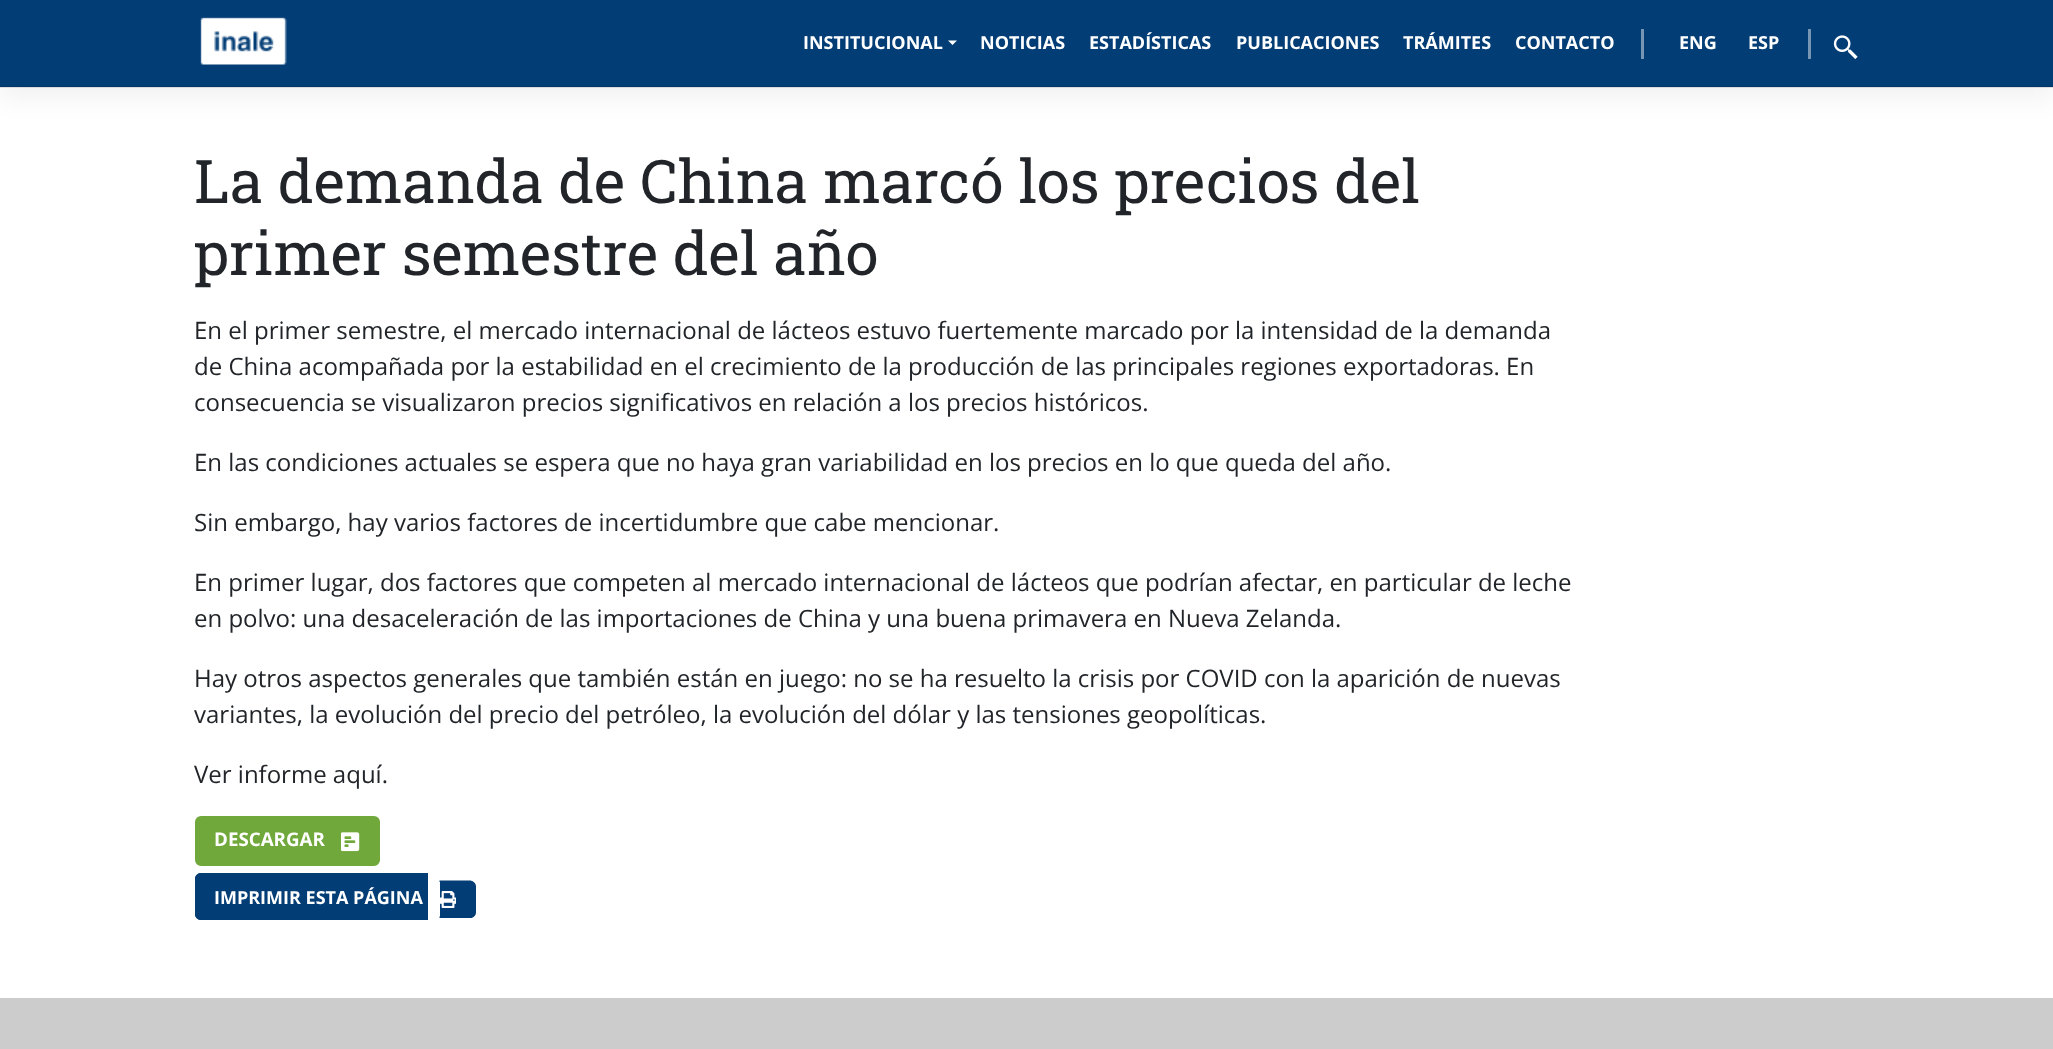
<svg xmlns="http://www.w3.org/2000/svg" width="2053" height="1049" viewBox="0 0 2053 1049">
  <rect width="100%" height="100%" fill="rgb(255,255,255)"/>
  <rect x="0" y="12" width="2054" height="87" fill="rgba(0,0,0,0.05)" filter="blur(12px)"/>
  <rect x="0" y="0" width="2053" height="87" fill="rgb(3,61,117)"/>
  <rect x="0" y="86" width="2053" height="2" fill="rgba(0,0,0,0.1)"/>
  <image x="200" y="17" width="87" height="48" href="pic1.png"/>
  <text x="803" y="49" font-family="Open Sans" font-size="18" font-weight="bold" fill="rgb(255,255,255)">INSTITUCIONAL</text>
  <path d="M948 40.5H957L952.5 45Z" fill="rgb(255,255,255)"/>
  <g font-family="Open Sans" font-size="18" font-weight="bold" fill="rgb(255,255,255)">
    <text x="980" y="49">NOTICIAS</text>
    <text x="1089" y="49">ESTADÍSTICAS</text>
    <text x="1236" y="49">PUBLICACIONES</text>
    <text x="1403" y="49">TRÁMITES</text>
    <text x="1515" y="49">CONTACTO</text>
  </g>
  <rect x="1641" y="29" width="3" height="30" fill="rgb(119,150,180)"/>
  <g font-family="Open Sans" font-size="18" font-weight="bold" fill="rgb(255,255,255)">
    <text x="1679" y="49">ENG</text>
    <text x="1748" y="49">ESP</text>
  </g>
  <rect x="1808" y="29" width="3" height="30" fill="rgb(119,150,180)"/>
  <image x="1833" y="35" width="25" height="24" href="pic2.png"/>
  <g font-family="Roboto Slab" font-size="60" fill="rgb(33,37,41)">
    <text>
      <tspan x="194" y="203">La demanda de China marcó los precios del</tspan>
      <tspan x="194" y="275">primer semestre del año</tspan>
    </text>
  </g>
  <g font-family="Open Sans" font-size="24" fill="rgb(33,37,41)">
    <text>
      <tspan x="194" y="339">En el primer semestre, el mercado internacional de lácteos estuvo fuertemente marcado por la intensidad de la demanda</tspan>
      <tspan x="194" y="375">de China acompañada por la estabilidad en el crecimiento de la producción de las principales regiones exportadoras. En</tspan>
      <tspan x="194" y="411">consecuencia se visualizaron precios significativos en relación a los precios históricos.</tspan>
    </text>
    <text x="194" y="471">En las condiciones actuales se espera que no haya gran variabilidad en los precios en lo que queda del año.</text>
    <text x="194" y="531">Sin embargo, hay varios factores de incertidumbre que cabe mencionar.</text>
    <text>
      <tspan x="194" y="591">En primer lugar, dos factores que competen al mercado internacional de lácteos que podrían afectar, en particular de leche</tspan>
      <tspan x="194" y="627">en polvo: una desaceleración de las importaciones de China y una buena primavera en Nueva Zelanda.</tspan>
    </text>
    <text>
      <tspan x="194" y="687">Hay otros aspectos generales que también están en juego: no se ha resuelto la crisis por COVID con la aparición de nuevas</tspan>
      <tspan x="194" y="723">variantes, la evolución del precio del petróleo, la evolución del dólar y las tensiones geopolíticas.</tspan>
    </text>
    <text x="194" y="783">Ver informe aquí.</text>
  </g>
  <rect x="196" y="817" width="183" height="48" rx="5" fill="rgb(112,168,59)" stroke="rgb(112,168,59)" stroke-width="2"/>
  <text x="214" y="846" font-family="Open Sans" font-size="18.75" font-weight="bold" fill="rgb(255,255,255)">DESCARGAR</text>
  <image x="341" y="832" width="19" height="20" href="pic3.png"/>
  <path d="M201 873H428V920H201C197.5 920 195 917.5 195 914V879C195 875.5 197.5 873 201 873Z" fill="rgb(3,61,117)"/>
  <path d="M201 873H428V920H201C198 920 195 917 195 914V879C195 876 198 873 201 873ZM201 874H428V918H201C199 918 196 916 196 914V879C196 877 199 874 201 874Z" fill="rgb(3,61,117)" fill-rule="evenodd"/>
  <text x="214" y="904" font-family="Open Sans" font-size="18" font-weight="bold" fill="rgb(255,255,255)">IMPRIMIR ESTA PÁGINA</text>
  <path d="M440 881H470C473.5 881 476 883.5 476 887V912C476 915.5 473.5 918 470 918H440Z" fill="rgb(3,61,117)"/>
  <path d="M439.5 880.5H469.5C473 880.5 475.5 883 475.5 886.5V912C475.5 915.5 473 918 469.5 918H439.5ZM439.5 882H469.5C472 882 474 884 474 886.5V912C474 914.5 472 916.5 469.5 916.5H439.5Z" fill="rgb(3,61,117)" fill-rule="evenodd"/>
  <image x="440" y="891" width="16" height="17" href="pic4.png"/>
  <rect x="0" y="998" width="2053" height="51" fill="rgb(204,204,204)"/>
</svg>
